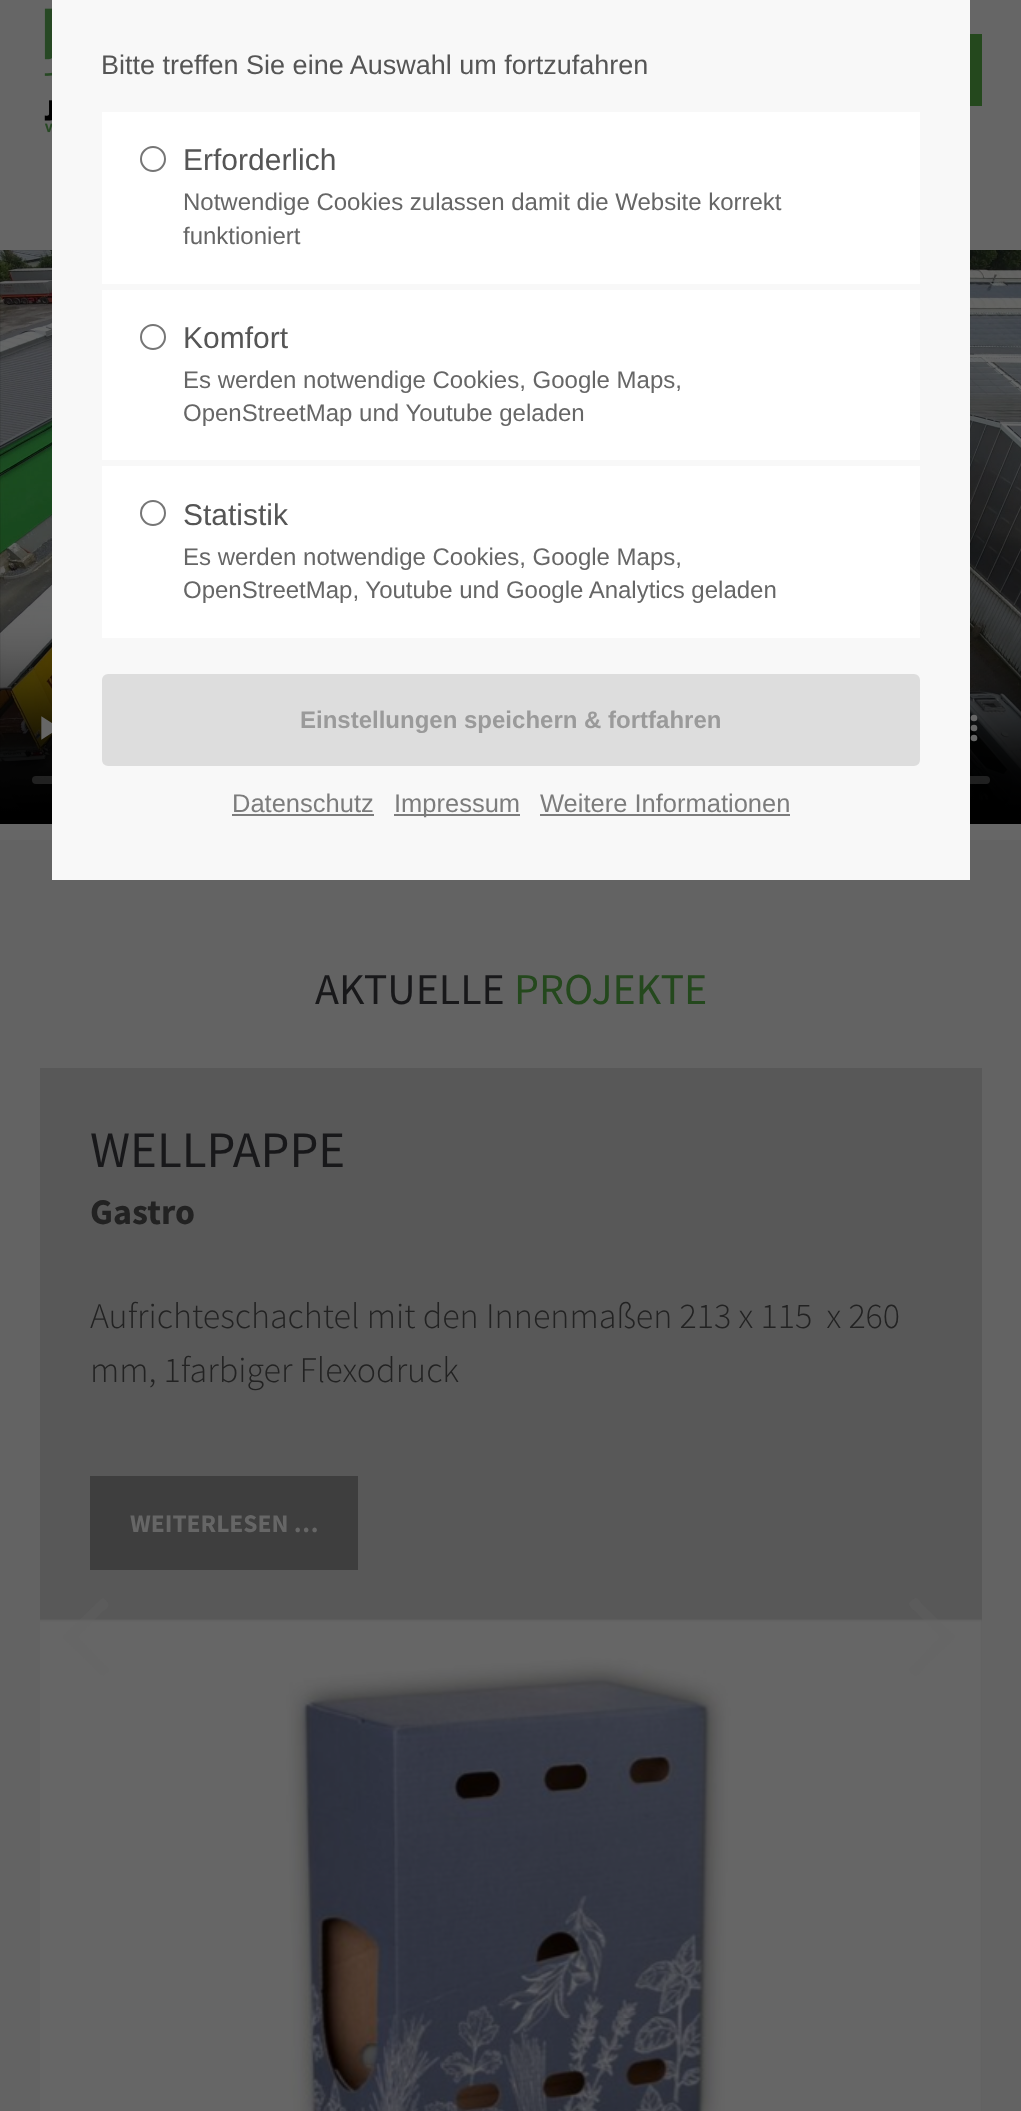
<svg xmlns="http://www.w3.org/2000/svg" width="1021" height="2111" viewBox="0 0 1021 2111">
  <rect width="100%" height="100%" fill="rgb(102,102,102)"/>
  <image x="44" y="8" width="8" height="125" href="pic1.png"/>
  <rect x="970" y="34" width="12" height="72" fill="rgb(36,72,29)"/>
  <image x="0" y="250" width="1021" height="574" href="pic2.png"/>
  <rect x="0" y="840" width="1021" height="1271" fill="rgb(99,99,99)"/>
  <rect x="52" y="0" width="918" height="880" fill="rgb(248,248,248)"/>
  <text x="101" y="74" font-family="Liberation Sans" font-size="27" fill="rgb(85,85,85)">Bitte treffen Sie eine Auswahl um fortzufahren</text>
  <rect x="102" y="112" width="818" height="172" fill="rgb(255,255,255)"/>
  <circle cx="153" cy="159" r="12" fill="none" stroke="rgb(118,118,118)" stroke-width="2"/>
  <text x="183" y="170" font-family="Liberation Sans" font-size="30" fill="rgb(85,85,85)">Erforderlich</text>
  <g font-family="Liberation Sans" font-size="24" fill="rgb(102,102,102)">
    <text>
      <tspan x="183" y="210">Notwendige Cookies zulassen damit die Website korrekt</tspan>
      <tspan x="183" y="244">funktioniert</tspan>
    </text>
  </g>
  <rect x="102" y="290" width="818" height="170" fill="rgb(255,255,255)"/>
  <circle cx="153" cy="337" r="12" fill="none" stroke="rgb(118,118,118)" stroke-width="2"/>
  <text x="183" y="348" font-family="Liberation Sans" font-size="30" fill="rgb(85,85,85)">Komfort</text>
  <g font-family="Liberation Sans" font-size="24" fill="rgb(102,102,102)">
    <text>
      <tspan x="183" y="388">Es werden notwendige Cookies, Google Maps,</tspan>
      <tspan x="183" y="421">OpenStreetMap und Youtube geladen</tspan>
    </text>
  </g>
  <rect x="102" y="466" width="818" height="172" fill="rgb(255,255,255)"/>
  <circle cx="153" cy="513" r="12" fill="none" stroke="rgb(118,118,118)" stroke-width="2"/>
  <text x="183" y="525" font-family="Liberation Sans" font-size="30" fill="rgb(85,85,85)">Statistik</text>
  <g font-family="Liberation Sans" font-size="24" fill="rgb(102,102,102)">
    <text>
      <tspan x="183" y="565">Es werden notwendige Cookies, Google Maps,</tspan>
      <tspan x="183" y="598">OpenStreetMap, Youtube und Google Analytics geladen</tspan>
    </text>
  </g>
  <rect x="103" y="675" width="816" height="90" rx="5" fill="rgb(221,221,221)" stroke="rgb(221,221,221)" stroke-width="2"/>
  <text x="300" y="728" font-family="Liberation Sans" font-size="24" font-weight="bold" fill="rgb(154,154,154)">Einstellungen speichern &amp; fortfahren</text>
  <text x="232" y="812" font-family="Liberation Sans" font-size="25.5" fill="rgb(124,124,124)">Datenschutz</text>
  <rect x="232" y="814" width="142" height="2" fill="rgb(124,124,124)"/>
  <rect x="394" y="814" width="126" height="2" fill="rgb(124,124,124)"/>
  <g font-family="Liberation Sans" font-size="25.5" fill="rgb(124,124,124)">
    <text x="394" y="812">Impressum</text>
    <text x="540" y="812">Weitere Informationen</text>
  </g>
  <rect x="540" y="814" width="250" height="2" fill="rgb(124,124,124)"/>
  <text x="315" y="1004" font-family="Source Sans Pro" font-size="44" fill="rgb(24,24,26)">AKTUELLE</text>
  <text x="514" y="1004" font-family="Source Sans Pro" font-size="44" fill="rgb(36,72,29)">PROJEKTE</text>
  <rect x="40" y="1068" width="942" height="1043" fill="rgb(88,88,88)"/>
  <text x="90" y="1167" font-family="Source Sans Pro" font-size="51" fill="rgb(24,24,26)">WELLPAPPE</text>
  <text x="90" y="1224" font-family="Source Sans Pro" font-size="36" font-weight="bold" fill="rgb(34,34,34)">Gastro</text>
  <g font-family="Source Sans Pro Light" font-size="36" font-weight="300" fill="rgb(34,34,34)">
    <text xml:space="preserve"><tspan x="90" y="1328">Aufrichteschachtel mit den Innenmaßen 213 x 115  x 260</tspan><tspan x="90" y="1382">mm, 1farbiger Flexodruck</tspan></text>
  </g>
  <rect x="90" y="1476" width="268" height="94" fill="rgb(62,62,62)"/>
  <text x="130" y="1532" font-family="Source Sans Pro" font-size="25.5" font-weight="bold" fill="rgb(102,102,102)">WEITERLESEN …</text>
  <image x="40" y="1619" width="942" height="492" href="pic3.png"/>
  <path d="M108 1603C111 1606 104 1611 103 1611L78 1637L108 1668C110 1670 107 1673 106 1674C104 1675 103 1677 101 1675L70 1645C61 1636 61 1638 70 1629L101 1599C103 1596 107 1601 108 1603Z" fill="rgba(102,102,102,0.24)"/>
  <path d="M954 1635C957 1639 948 1644 948 1645L923 1669C923 1669 917 1678 914 1675C912 1674 907 1670 910 1668L940 1637L915 1611C914 1611 908 1606 909 1603L912 1600C917 1595 919 1600 923 1605Z" fill="rgba(102,102,102,0.24)"/>
</svg>
